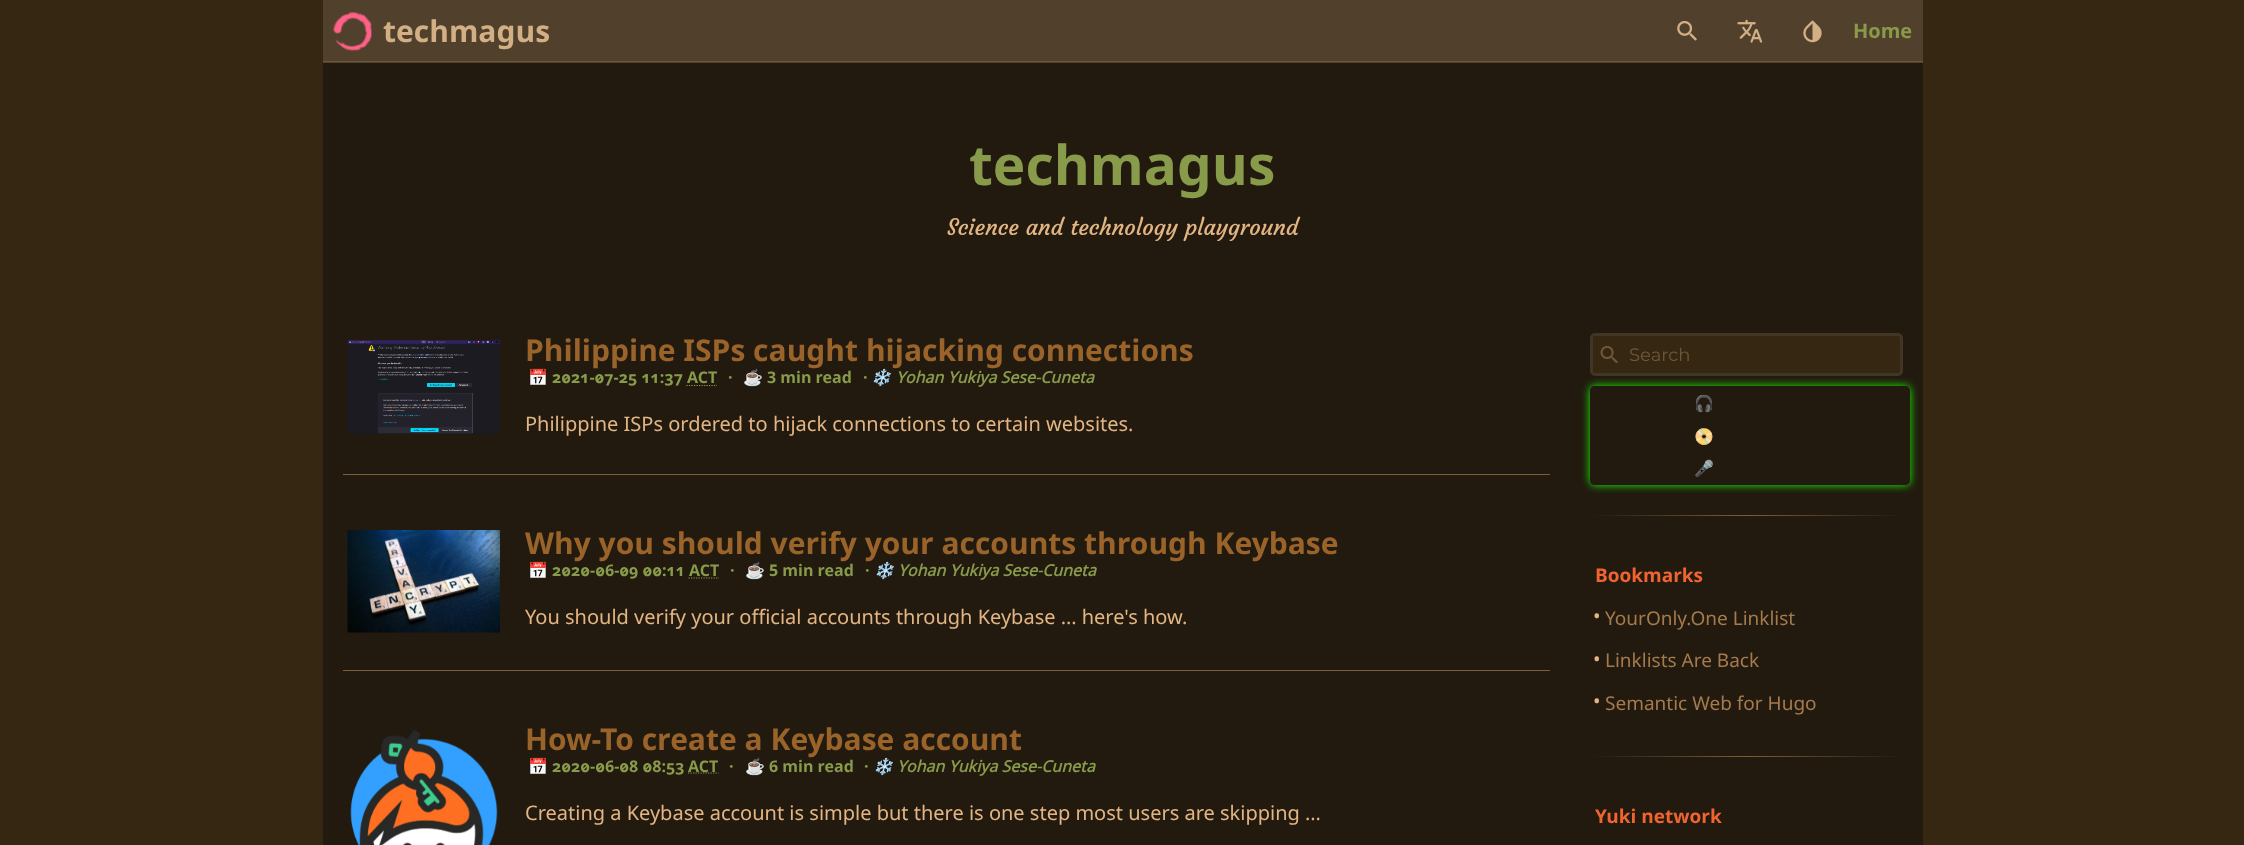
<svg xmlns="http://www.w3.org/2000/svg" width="2244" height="845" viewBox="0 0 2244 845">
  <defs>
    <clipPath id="clip1"><path d="M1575 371H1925V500H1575ZM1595 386H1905C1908 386 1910 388 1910 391V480C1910 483 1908 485 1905 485H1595C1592 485 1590 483 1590 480V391C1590 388 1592 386 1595 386Z" clip-rule="evenodd"/></clipPath>
    <linearGradient id="g1" gradientUnits="userSpaceOnUse" x1="1590" y1="516" x2="1903" y2="516"><stop offset="0" stop-color="rgb(34,26,15)"/><stop offset="0.5" stop-color="rgb(127,93,56)"/><stop offset="1" stop-color="rgb(34,26,15)"/></linearGradient>
    <linearGradient id="g2" gradientUnits="userSpaceOnUse" x1="1590" y1="757" x2="1903" y2="757"><stop offset="0" stop-color="rgb(34,26,15)"/><stop offset="0.5" stop-color="rgb(127,93,56)"/><stop offset="1" stop-color="rgb(34,26,15)"/></linearGradient>
  </defs>
  <rect width="100%" height="100%" fill="rgb(54,39,18)"/>
  <rect x="323" y="63" width="1600" height="782" fill="rgb(34,26,15)"/>
  <rect x="323" y="0" width="1600" height="63" fill="rgb(81,65,44)"/>
  <rect x="323" y="61" width="1600" height="1" fill="rgb(110,88,59)"/>
  <image x="333" y="12" width="39" height="39" href="pic1.png"/>
  <text x="383" y="42" font-family="Noto Sans" font-size="30" font-weight="bold" fill="rgb(211,175,134)">techmagus</text>
  <image x="1677" y="21" width="20" height="20" href="pic2.png"/>
  <image x="1737" y="19" width="26" height="24" href="pic3.png"/>
  <image x="1803" y="20" width="19" height="23" href="pic4.png"/>
  <text x="1853" y="38" font-family="Noto Sans" font-size="20" font-weight="bold" fill="rgb(136,155,74)">Home</text>
  <text x="969" y="185" font-family="Noto Sans" font-size="55" font-weight="bold" fill="rgb(136,155,74)">techmagus</text>
  <text x="947" y="235" font-family="Courgette" font-size="22.5" fill="rgb(227,181,131)">Science and technology playground</text>
  <image x="347" y="340" width="153" height="94" href="pic5.png"/>
  <text x="525" y="361" font-family="Noto Sans" font-size="30" font-weight="bold" fill="rgb(153,99,41)">Philippine ISPs caught hijacking connections</text>
  <text x="528" y="383" font-family="Noto Color Emoji" font-size="16" font-weight="bold" fill="rgb(136,155,74)">📅</text>
  <text x="552" y="383" font-family="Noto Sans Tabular" font-size="16" font-weight="bold" fill="rgb(136,155,74)">2021-07-25 11:37</text>
  <path d="M686.5 385.5H717" fill="none" stroke="rgb(136,155,74)" stroke-width="1.2" stroke-dasharray="1.25 1.25"/>
  <g font-family="Noto Sans" font-size="16" font-weight="bold" fill="rgb(136,155,74)">
    <text x="687" y="383">ACT</text>
    <text x="728" y="383">·</text>
  </g>
  <text x="743" y="383" font-family="Noto Color Emoji" font-size="16" font-weight="bold" fill="rgb(136,155,74)">☕</text>
  <g font-family="Noto Sans" font-size="16" font-weight="bold" fill="rgb(136,155,74)">
    <text x="767" y="383">3 min read</text>
    <text x="863" y="383">·</text>
  </g>
  <text x="871" y="383" font-family="Noto Color Emoji" font-size="16" font-weight="bold" font-style="italic" fill="rgb(136,155,74)">❄️</text>
  <text x="896" y="383" font-family="Noto Sans Tagbanwa" font-size="16" font-weight="bold" font-style="italic" fill="rgb(136,155,74)">Yohan Yukiya Sese-Cuneta</text>
  <text x="525" y="431" font-family="Noto Sans" font-size="20" fill="rgb(227,181,131)">Philippine ISPs ordered to hijack connections to certain websites.</text>
  <rect x="343" y="474" width="1207" height="1" fill="rgb(127,93,56)"/>
  <image x="347" y="530" width="153" height="103" href="pic6.png"/>
  <text x="525" y="554" font-family="Noto Sans" font-size="30" font-weight="bold" fill="rgb(153,99,41)">Why you should verify your accounts through Keybase</text>
  <text x="528" y="576" font-family="Noto Color Emoji" font-size="16" font-weight="bold" fill="rgb(136,155,74)">📅</text>
  <text x="552" y="576" font-family="Noto Sans Tabular" font-size="16" font-weight="bold" fill="rgb(136,155,74)">2020-06-09 00:11</text>
  <text x="689" y="576" font-family="Noto Sans" font-size="16" font-weight="bold" fill="rgb(136,155,74)">ACT</text>
  <path d="M688.5 578H719" fill="none" stroke="rgb(136,155,74)" stroke-width="1.2" stroke-dasharray="1.25 1.25"/>
  <text x="730" y="576" font-family="Noto Sans" font-size="16" font-weight="bold" fill="rgb(136,155,74)">·</text>
  <text x="745" y="576" font-family="Noto Color Emoji" font-size="16" font-weight="bold" fill="rgb(136,155,74)">☕</text>
  <g font-family="Noto Sans" font-size="16" font-weight="bold" fill="rgb(136,155,74)">
    <text x="769" y="576">5 min read</text>
    <text x="865" y="576">·</text>
  </g>
  <text x="874" y="576" font-family="Noto Color Emoji" font-size="16" font-weight="bold" font-style="italic" fill="rgb(136,155,74)">❄️</text>
  <text x="898" y="576" font-family="Noto Sans Tagbanwa" font-size="16" font-weight="bold" font-style="italic" fill="rgb(136,155,74)">Yohan Yukiya Sese-Cuneta</text>
  <text x="525" y="624" font-family="Noto Sans" font-size="20" fill="rgb(227,181,131)">You should verify your official accounts through Keybase … here's how.</text>
  <rect x="343" y="670" width="1207" height="1" fill="rgb(127,93,56)"/>
  <image x="350" y="729" width="148" height="116" href="pic7.png"/>
  <text x="525" y="750" font-family="Noto Sans" font-size="30" font-weight="bold" fill="rgb(153,99,41)">How-To create a Keybase account</text>
  <text x="528" y="772" font-family="Noto Color Emoji" font-size="16" font-weight="bold" fill="rgb(136,155,74)">📅</text>
  <text x="552" y="772" font-family="Noto Sans Tabular" font-size="16" font-weight="bold" fill="rgb(136,155,74)">2020-06-08 08:53</text>
  <path d="M688 773H718.5" fill="none" stroke="rgb(136,155,74)" stroke-width="1.2" stroke-dasharray="1.25 1.25"/>
  <g font-family="Noto Sans" font-size="16" font-weight="bold" fill="rgb(136,155,74)">
    <text x="688" y="772">ACT</text>
    <text x="729" y="772">·</text>
  </g>
  <text x="745" y="772" font-family="Noto Color Emoji" font-size="16" font-weight="bold" fill="rgb(136,155,74)">☕</text>
  <g font-family="Noto Sans" font-size="16" font-weight="bold" fill="rgb(136,155,74)">
    <text x="769" y="772">6 min read</text>
    <text x="864" y="772">·</text>
  </g>
  <text x="873" y="772" font-family="Noto Color Emoji" font-size="16" font-weight="bold" font-style="italic" fill="rgb(136,155,74)">❄️</text>
  <text x="897" y="772" font-family="Noto Sans Tagbanwa" font-size="16" font-weight="bold" font-style="italic" fill="rgb(136,155,74)">Yohan Yukiya Sese-Cuneta</text>
  <text x="525" y="820" font-family="Noto Sans" font-size="20" fill="rgb(227,181,131)">Creating a Keybase account is simple but there is one step most users are skipping …</text>
  <g clip-path="url(#clip1)">
    <rect x="1590" y="386" width="320" height="99" rx="5" fill="rgb(20,255,0)" filter="blur(4.5px)"/>
  </g>
  <rect x="1591.5" y="334.5" width="310" height="40" rx="3.5" fill="rgb(54,39,18)" stroke="rgb(66,53,35)" stroke-width="3"/>
  <image x="1600" y="346" width="18" height="17" href="pic8.png"/>
  <text x="1629" y="361" font-family="Montserrat" font-size="18" fill="rgb(110,88,59)">Search</text>
  <text x="1694" y="409" font-family="Noto Color Emoji" font-size="16" font-weight="bold" fill="rgb(255,83,80)">🎧</text>
  <text x="1694" y="442" font-family="Noto Color Emoji" font-size="16" fill="rgb(255,83,80)">📀</text>
  <text x="1694" y="474" font-family="Noto Color Emoji" font-size="16" font-weight="bold" fill="rgb(255,83,80)">🎤</text>
  <rect x="1590" y="515" width="313" height="1" fill="url(#g1)"/>
  <text x="1595" y="582" font-family="Noto Sans" font-size="19" font-weight="bold" fill="rgb(240,100,49)">Bookmarks</text>
  <text x="1593" y="623" font-family="Noto Sans" font-size="20" fill="rgb(227,181,131)">•</text>
  <text x="1605" y="625" font-family="Noto Sans" font-size="19" fill="rgb(165,122,76)">YourOnly.One Linklist</text>
  <text x="1593" y="666" font-family="Noto Sans" font-size="20" fill="rgb(227,181,131)">•</text>
  <text x="1605" y="667" font-family="Noto Sans" font-size="19" fill="rgb(165,122,76)">Linklists Are Back</text>
  <text x="1593" y="708" font-family="Noto Sans" font-size="20" fill="rgb(227,181,131)">•</text>
  <text x="1605" y="710" font-family="Noto Sans" font-size="19" fill="rgb(165,122,76)">Semantic Web for Hugo</text>
  <rect x="1590" y="756" width="313" height="1" fill="url(#g2)"/>
  <text x="1595" y="823" font-family="Noto Sans" font-size="19" font-weight="bold" fill="rgb(240,100,49)">Yuki network</text>
</svg>
